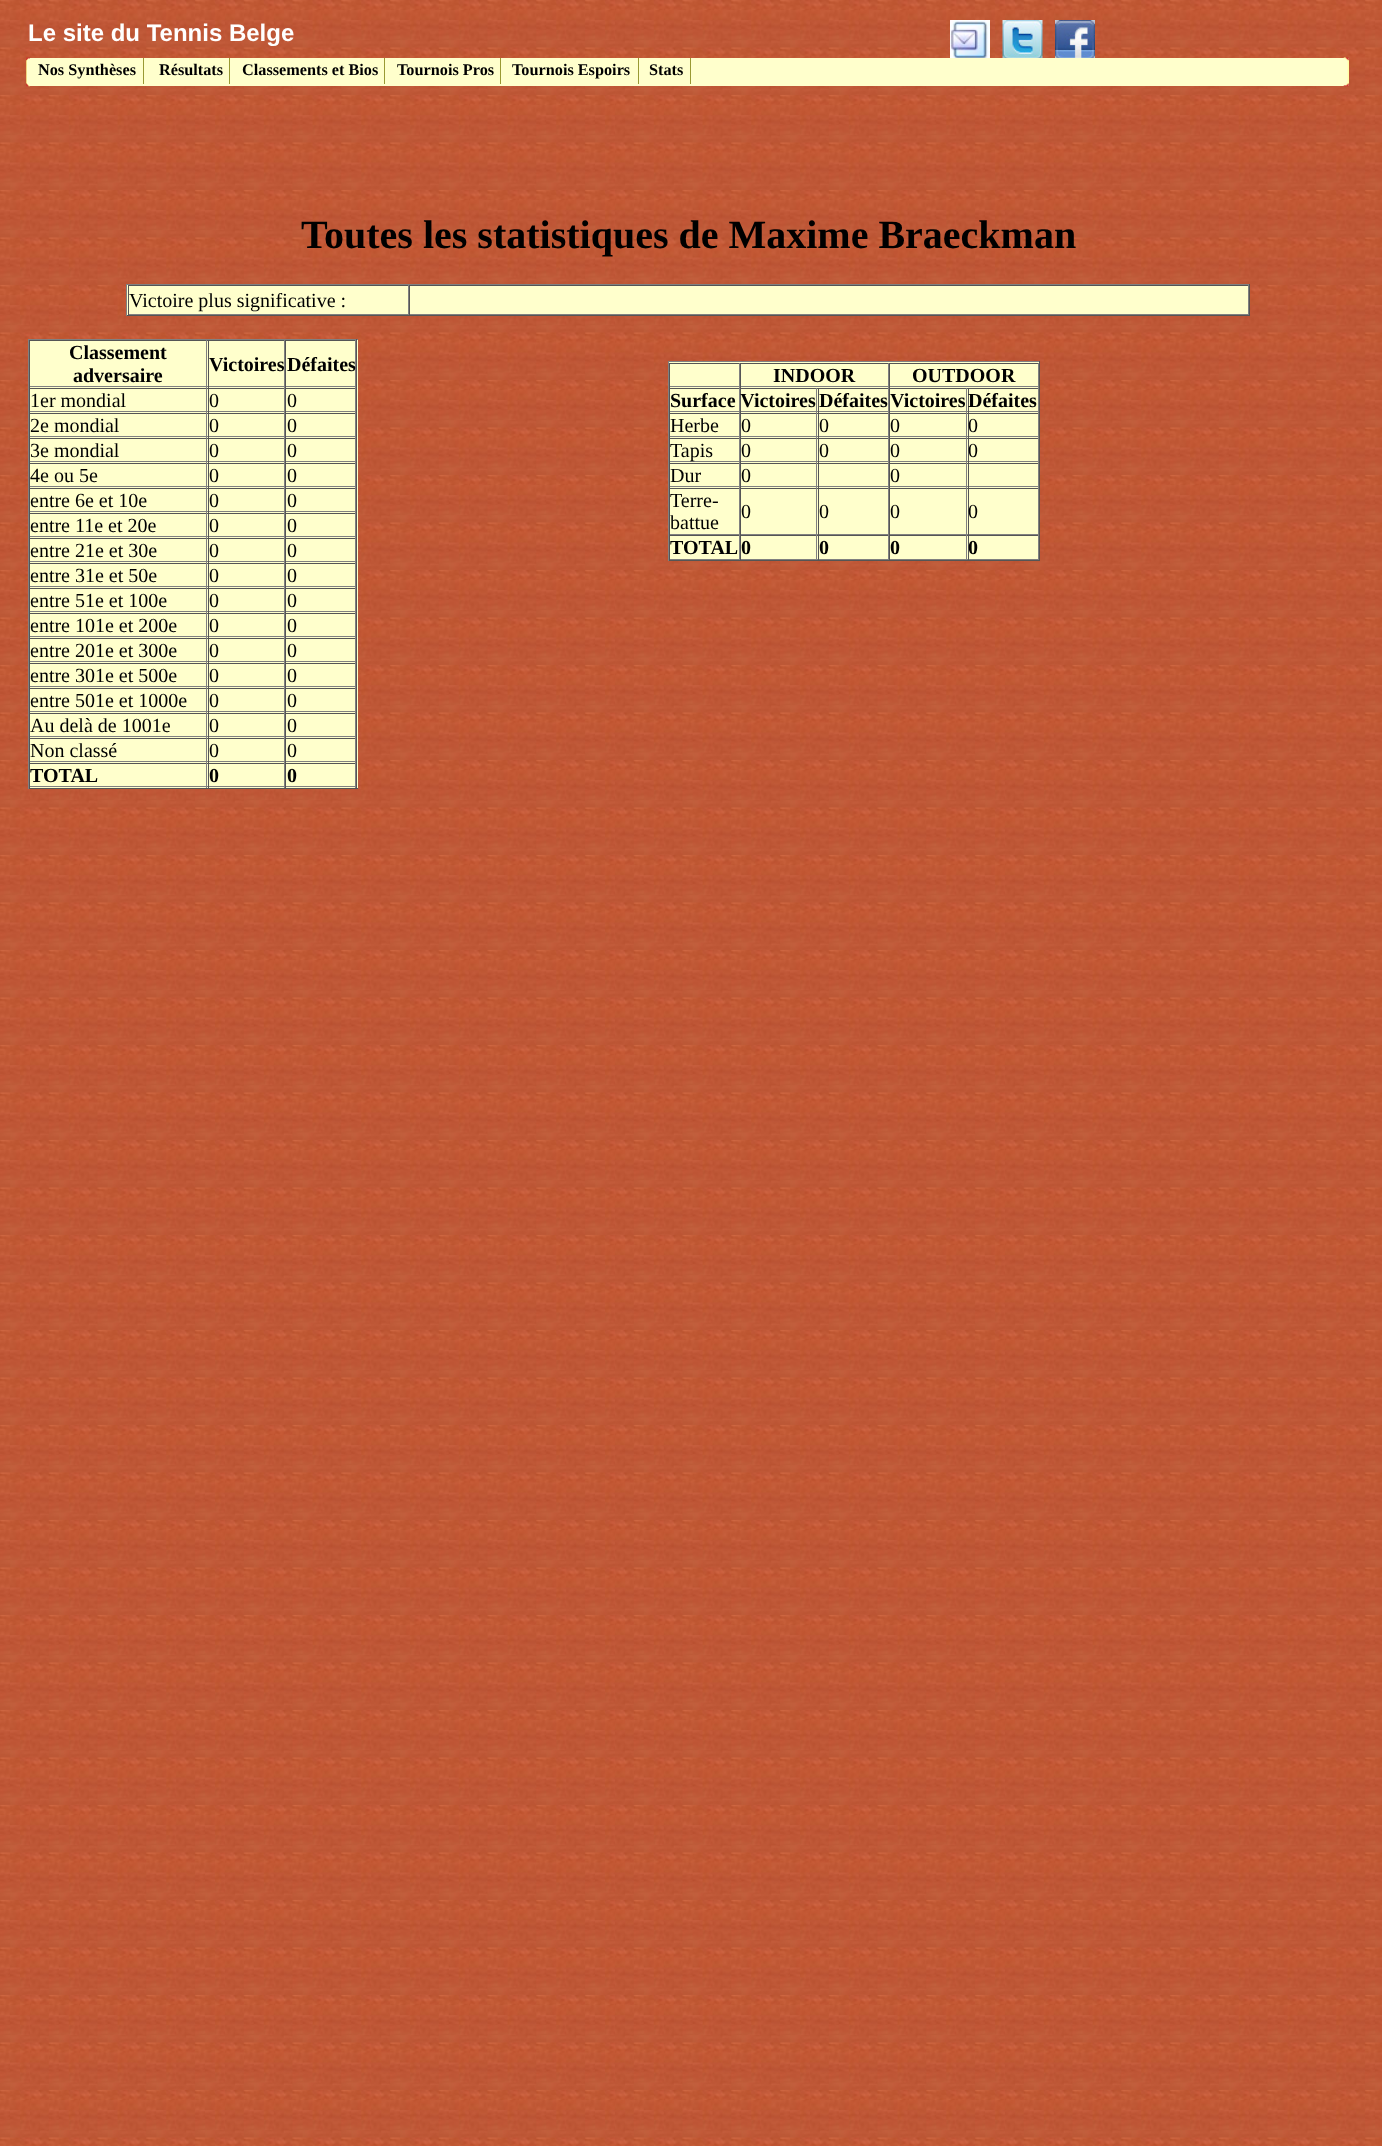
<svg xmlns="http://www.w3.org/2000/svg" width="1382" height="2146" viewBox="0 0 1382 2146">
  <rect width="100%" height="100%" fill="rgb(255,255,255)"/>
  <image x="0" y="0" width="1382" height="2146" href="pic1.png"/>
  <text x="28" y="41" font-family="Liberation Sans" font-size="24" font-weight="bold" fill="rgb(255,255,255)">Le site du Tennis Belge</text>
  <image x="950" y="20" width="40" height="38" href="pic2.png"/>
  <image x="1002" y="20" width="41" height="38" href="pic3.png"/>
  <image x="1055" y="20" width="40" height="38" href="pic4.png"/>
  <rect x="30" y="58" width="1319" height="28" fill="rgb(255,255,204)"/>
  <image x="26" y="57" width="4" height="30" href="pic5.png"/>
  <text x="38" y="75" font-family="Liberation Serif" font-size="16.25" font-weight="bold" fill="rgb(0,0,0)">Nos Synthèses</text>
  <rect x="143" y="58" width="1" height="26" fill="rgb(153,153,51)"/>
  <text x="159" y="75" font-family="Liberation Serif" font-size="16.25" font-weight="bold" fill="rgb(0,0,0)">Résultats</text>
  <rect x="229" y="58" width="1" height="26" fill="rgb(153,153,51)"/>
  <text x="242" y="75" font-family="Liberation Serif" font-size="16.25" font-weight="bold" fill="rgb(0,0,0)">Classements et Bios</text>
  <rect x="384" y="58" width="1" height="26" fill="rgb(153,153,51)"/>
  <text x="397" y="75" font-family="Liberation Serif" font-size="16.25" font-weight="bold" fill="rgb(0,0,0)">Tournois Pros</text>
  <rect x="500" y="58" width="1" height="26" fill="rgb(153,153,51)"/>
  <text x="512" y="75" font-family="Liberation Serif" font-size="16.25" font-weight="bold" fill="rgb(0,0,0)">Tournois Espoirs</text>
  <rect x="638" y="58" width="1" height="26" fill="rgb(153,153,51)"/>
  <text x="649" y="75" font-family="Liberation Serif" font-size="16.25" font-weight="bold" fill="rgb(0,0,0)">Stats</text>
  <rect x="690" y="58" width="1" height="26" fill="rgb(153,153,51)"/>
  <image x="1343" y="57" width="6" height="30" href="pic6.png"/>
  <text x="301" y="248" font-family="Liberation Serif" font-size="40" font-weight="bold" fill="rgb(0,0,0)">Toutes les statistiques de Maxime Braeckman</text>
  <rect x="127" y="285" width="1121" height="30" fill="rgb(255,255,204)"/>
  <rect x="126" y="284" width="1124" height="1" fill="rgb(128,128,128)"/>
  <rect x="1249" y="284" width="1" height="32" fill="rgb(85,85,85)"/>
  <rect x="126" y="315" width="1124" height="1" fill="rgb(85,85,85)"/>
  <rect x="126" y="284" width="1" height="32" fill="rgb(128,128,128)"/>
  <rect x="128" y="285" width="1121" height="1" fill="rgb(85,85,85)"/>
  <rect x="408" y="285" width="1" height="30" fill="rgb(128,128,128)"/>
  <rect x="128" y="314" width="281" height="1" fill="rgb(128,128,128)"/>
  <rect x="128" y="285" width="1" height="30" fill="rgb(85,85,85)"/>
  <text x="129" y="307" font-family="Liberation Serif" font-size="20" fill="rgb(0,0,0)">Victoire plus significative :</text>
  <rect x="1248" y="285" width="1" height="30" fill="rgb(128,128,128)"/>
  <rect x="409" y="314" width="840" height="1" fill="rgb(128,128,128)"/>
  <rect x="409" y="285" width="1" height="30" fill="rgb(85,85,85)"/>
  <rect x="30" y="340" width="328" height="448" fill="rgb(255,255,204)"/>
  <rect x="28" y="339" width="330" height="1" fill="rgb(128,128,128)"/>
  <rect x="356" y="339" width="1" height="450" fill="rgb(85,85,85)"/>
  <rect x="28" y="788" width="330" height="1" fill="rgb(85,85,85)"/>
  <rect x="28" y="339" width="1" height="450" fill="rgb(128,128,128)"/>
  <rect x="29" y="340" width="327" height="1" fill="rgb(85,85,85)"/>
  <rect x="206" y="340" width="1" height="48" fill="rgb(128,128,128)"/>
  <rect x="29" y="386" width="179" height="1" fill="rgb(128,128,128)"/>
  <rect x="29" y="340" width="1" height="48" fill="rgb(85,85,85)"/>
  <g font-family="Liberation Serif" font-size="20" font-weight="bold" fill="rgb(0,0,0)">
    <text x="69" y="359">Classement</text>
    <text x="73" y="382">adversaire</text>
  </g>
  <rect x="284" y="340" width="1" height="48" fill="rgb(128,128,128)"/>
  <rect x="208" y="386" width="77" height="1" fill="rgb(128,128,128)"/>
  <rect x="208" y="340" width="1" height="48" fill="rgb(85,85,85)"/>
  <text x="209" y="371" font-family="Liberation Serif" font-size="20" font-weight="bold" fill="rgb(0,0,0)">Victoires</text>
  <rect x="355" y="340" width="1" height="48" fill="rgb(128,128,128)"/>
  <rect x="285" y="386" width="71" height="1" fill="rgb(128,128,128)"/>
  <rect x="285" y="340" width="1" height="48" fill="rgb(85,85,85)"/>
  <text x="287" y="371" font-family="Liberation Serif" font-size="20" font-weight="bold" fill="rgb(0,0,0)">Défaites</text>
  <rect x="29" y="388" width="327" height="1" fill="rgb(85,85,85)"/>
  <rect x="206" y="388" width="1" height="25" fill="rgb(128,128,128)"/>
  <rect x="29" y="411" width="179" height="1" fill="rgb(128,128,128)"/>
  <rect x="29" y="388" width="1" height="25" fill="rgb(85,85,85)"/>
  <text x="30" y="407" font-family="Liberation Serif" font-size="20" fill="rgb(0,0,0)">1er mondial</text>
  <rect x="284" y="388" width="1" height="25" fill="rgb(128,128,128)"/>
  <rect x="208" y="411" width="77" height="1" fill="rgb(128,128,128)"/>
  <rect x="208" y="388" width="1" height="25" fill="rgb(85,85,85)"/>
  <text x="209" y="407" font-family="Liberation Serif" font-size="20" fill="rgb(0,0,0)">0</text>
  <rect x="355" y="388" width="1" height="25" fill="rgb(128,128,128)"/>
  <rect x="285" y="411" width="71" height="1" fill="rgb(128,128,128)"/>
  <rect x="285" y="388" width="1" height="25" fill="rgb(85,85,85)"/>
  <text x="287" y="407" font-family="Liberation Serif" font-size="20" fill="rgb(0,0,0)">0</text>
  <rect x="29" y="413" width="327" height="1" fill="rgb(85,85,85)"/>
  <rect x="206" y="413" width="1" height="25" fill="rgb(128,128,128)"/>
  <rect x="29" y="436" width="179" height="1" fill="rgb(128,128,128)"/>
  <rect x="29" y="413" width="1" height="25" fill="rgb(85,85,85)"/>
  <text x="30" y="432" font-family="Liberation Serif" font-size="20" fill="rgb(0,0,0)">2e mondial</text>
  <rect x="284" y="413" width="1" height="25" fill="rgb(128,128,128)"/>
  <rect x="208" y="436" width="77" height="1" fill="rgb(128,128,128)"/>
  <rect x="208" y="413" width="1" height="25" fill="rgb(85,85,85)"/>
  <text x="209" y="432" font-family="Liberation Serif" font-size="20" fill="rgb(0,0,0)">0</text>
  <rect x="355" y="413" width="1" height="25" fill="rgb(128,128,128)"/>
  <rect x="285" y="436" width="71" height="1" fill="rgb(128,128,128)"/>
  <rect x="285" y="413" width="1" height="25" fill="rgb(85,85,85)"/>
  <text x="287" y="432" font-family="Liberation Serif" font-size="20" fill="rgb(0,0,0)">0</text>
  <rect x="29" y="438" width="327" height="1" fill="rgb(85,85,85)"/>
  <rect x="206" y="438" width="1" height="25" fill="rgb(128,128,128)"/>
  <rect x="29" y="461" width="179" height="1" fill="rgb(128,128,128)"/>
  <rect x="29" y="438" width="1" height="25" fill="rgb(85,85,85)"/>
  <text x="30" y="457" font-family="Liberation Serif" font-size="20" fill="rgb(0,0,0)">3e mondial</text>
  <rect x="284" y="438" width="1" height="25" fill="rgb(128,128,128)"/>
  <rect x="208" y="461" width="77" height="1" fill="rgb(128,128,128)"/>
  <rect x="208" y="438" width="1" height="25" fill="rgb(85,85,85)"/>
  <text x="209" y="457" font-family="Liberation Serif" font-size="20" fill="rgb(0,0,0)">0</text>
  <rect x="355" y="438" width="1" height="25" fill="rgb(128,128,128)"/>
  <rect x="285" y="461" width="71" height="1" fill="rgb(128,128,128)"/>
  <rect x="285" y="438" width="1" height="25" fill="rgb(85,85,85)"/>
  <text x="287" y="457" font-family="Liberation Serif" font-size="20" fill="rgb(0,0,0)">0</text>
  <rect x="29" y="463" width="327" height="1" fill="rgb(85,85,85)"/>
  <rect x="206" y="463" width="1" height="25" fill="rgb(128,128,128)"/>
  <rect x="29" y="486" width="179" height="1" fill="rgb(128,128,128)"/>
  <rect x="29" y="463" width="1" height="25" fill="rgb(85,85,85)"/>
  <text x="30" y="482" font-family="Liberation Serif" font-size="20" fill="rgb(0,0,0)">4e ou 5e</text>
  <rect x="284" y="463" width="1" height="25" fill="rgb(128,128,128)"/>
  <rect x="208" y="486" width="77" height="1" fill="rgb(128,128,128)"/>
  <rect x="208" y="463" width="1" height="25" fill="rgb(85,85,85)"/>
  <text x="209" y="482" font-family="Liberation Serif" font-size="20" fill="rgb(0,0,0)">0</text>
  <rect x="355" y="463" width="1" height="25" fill="rgb(128,128,128)"/>
  <rect x="285" y="486" width="71" height="1" fill="rgb(128,128,128)"/>
  <rect x="285" y="463" width="1" height="25" fill="rgb(85,85,85)"/>
  <text x="287" y="482" font-family="Liberation Serif" font-size="20" fill="rgb(0,0,0)">0</text>
  <rect x="29" y="488" width="327" height="1" fill="rgb(85,85,85)"/>
  <rect x="206" y="488" width="1" height="25" fill="rgb(128,128,128)"/>
  <rect x="29" y="511" width="179" height="1" fill="rgb(128,128,128)"/>
  <rect x="29" y="488" width="1" height="25" fill="rgb(85,85,85)"/>
  <text x="30" y="507" font-family="Liberation Serif" font-size="20" fill="rgb(0,0,0)">entre 6e et 10e</text>
  <rect x="284" y="488" width="1" height="25" fill="rgb(128,128,128)"/>
  <rect x="208" y="511" width="77" height="1" fill="rgb(128,128,128)"/>
  <rect x="208" y="488" width="1" height="25" fill="rgb(85,85,85)"/>
  <text x="209" y="507" font-family="Liberation Serif" font-size="20" fill="rgb(0,0,0)">0</text>
  <rect x="355" y="488" width="1" height="25" fill="rgb(128,128,128)"/>
  <rect x="285" y="511" width="71" height="1" fill="rgb(128,128,128)"/>
  <rect x="285" y="488" width="1" height="25" fill="rgb(85,85,85)"/>
  <text x="287" y="507" font-family="Liberation Serif" font-size="20" fill="rgb(0,0,0)">0</text>
  <rect x="29" y="513" width="327" height="1" fill="rgb(85,85,85)"/>
  <rect x="206" y="513" width="1" height="25" fill="rgb(128,128,128)"/>
  <rect x="29" y="536" width="179" height="1" fill="rgb(128,128,128)"/>
  <rect x="29" y="513" width="1" height="25" fill="rgb(85,85,85)"/>
  <text x="30" y="532" font-family="Liberation Serif" font-size="20" fill="rgb(0,0,0)">entre 11e et 20e</text>
  <rect x="284" y="513" width="1" height="25" fill="rgb(128,128,128)"/>
  <rect x="208" y="536" width="77" height="1" fill="rgb(128,128,128)"/>
  <rect x="208" y="513" width="1" height="25" fill="rgb(85,85,85)"/>
  <text x="209" y="532" font-family="Liberation Serif" font-size="20" fill="rgb(0,0,0)">0</text>
  <rect x="355" y="513" width="1" height="25" fill="rgb(128,128,128)"/>
  <rect x="285" y="536" width="71" height="1" fill="rgb(128,128,128)"/>
  <rect x="285" y="513" width="1" height="25" fill="rgb(85,85,85)"/>
  <text x="287" y="532" font-family="Liberation Serif" font-size="20" fill="rgb(0,0,0)">0</text>
  <rect x="29" y="538" width="327" height="1" fill="rgb(85,85,85)"/>
  <rect x="206" y="538" width="1" height="25" fill="rgb(128,128,128)"/>
  <rect x="29" y="561" width="179" height="1" fill="rgb(128,128,128)"/>
  <rect x="29" y="538" width="1" height="25" fill="rgb(85,85,85)"/>
  <text x="30" y="557" font-family="Liberation Serif" font-size="20" fill="rgb(0,0,0)">entre 21e et 30e</text>
  <rect x="284" y="538" width="1" height="25" fill="rgb(128,128,128)"/>
  <rect x="208" y="561" width="77" height="1" fill="rgb(128,128,128)"/>
  <rect x="208" y="538" width="1" height="25" fill="rgb(85,85,85)"/>
  <text x="209" y="557" font-family="Liberation Serif" font-size="20" fill="rgb(0,0,0)">0</text>
  <rect x="355" y="538" width="1" height="25" fill="rgb(128,128,128)"/>
  <rect x="285" y="561" width="71" height="1" fill="rgb(128,128,128)"/>
  <rect x="285" y="538" width="1" height="25" fill="rgb(85,85,85)"/>
  <text x="287" y="557" font-family="Liberation Serif" font-size="20" fill="rgb(0,0,0)">0</text>
  <rect x="29" y="563" width="327" height="1" fill="rgb(85,85,85)"/>
  <rect x="206" y="563" width="1" height="25" fill="rgb(128,128,128)"/>
  <rect x="29" y="586" width="179" height="1" fill="rgb(128,128,128)"/>
  <rect x="29" y="563" width="1" height="25" fill="rgb(85,85,85)"/>
  <text x="30" y="582" font-family="Liberation Serif" font-size="20" fill="rgb(0,0,0)">entre 31e et 50e</text>
  <rect x="284" y="563" width="1" height="25" fill="rgb(128,128,128)"/>
  <rect x="208" y="586" width="77" height="1" fill="rgb(128,128,128)"/>
  <rect x="208" y="563" width="1" height="25" fill="rgb(85,85,85)"/>
  <text x="209" y="582" font-family="Liberation Serif" font-size="20" fill="rgb(0,0,0)">0</text>
  <rect x="355" y="563" width="1" height="25" fill="rgb(128,128,128)"/>
  <rect x="285" y="586" width="71" height="1" fill="rgb(128,128,128)"/>
  <rect x="285" y="563" width="1" height="25" fill="rgb(85,85,85)"/>
  <text x="287" y="582" font-family="Liberation Serif" font-size="20" fill="rgb(0,0,0)">0</text>
  <rect x="29" y="588" width="327" height="1" fill="rgb(85,85,85)"/>
  <rect x="206" y="588" width="1" height="25" fill="rgb(128,128,128)"/>
  <rect x="29" y="611" width="179" height="1" fill="rgb(128,128,128)"/>
  <rect x="29" y="588" width="1" height="25" fill="rgb(85,85,85)"/>
  <text x="30" y="607" font-family="Liberation Serif" font-size="20" fill="rgb(0,0,0)">entre 51e et 100e</text>
  <rect x="284" y="588" width="1" height="25" fill="rgb(128,128,128)"/>
  <rect x="208" y="611" width="77" height="1" fill="rgb(128,128,128)"/>
  <rect x="208" y="588" width="1" height="25" fill="rgb(85,85,85)"/>
  <text x="209" y="607" font-family="Liberation Serif" font-size="20" fill="rgb(0,0,0)">0</text>
  <rect x="355" y="588" width="1" height="25" fill="rgb(128,128,128)"/>
  <rect x="285" y="611" width="71" height="1" fill="rgb(128,128,128)"/>
  <rect x="285" y="588" width="1" height="25" fill="rgb(85,85,85)"/>
  <text x="287" y="607" font-family="Liberation Serif" font-size="20" fill="rgb(0,0,0)">0</text>
  <rect x="29" y="613" width="327" height="1" fill="rgb(85,85,85)"/>
  <rect x="206" y="613" width="1" height="25" fill="rgb(128,128,128)"/>
  <rect x="29" y="636" width="179" height="1" fill="rgb(128,128,128)"/>
  <rect x="29" y="613" width="1" height="25" fill="rgb(85,85,85)"/>
  <text x="30" y="632" font-family="Liberation Serif" font-size="20" fill="rgb(0,0,0)">entre 101e et 200e</text>
  <rect x="284" y="613" width="1" height="25" fill="rgb(128,128,128)"/>
  <rect x="208" y="636" width="77" height="1" fill="rgb(128,128,128)"/>
  <rect x="208" y="613" width="1" height="25" fill="rgb(85,85,85)"/>
  <text x="209" y="632" font-family="Liberation Serif" font-size="20" fill="rgb(0,0,0)">0</text>
  <rect x="355" y="613" width="1" height="25" fill="rgb(128,128,128)"/>
  <rect x="285" y="636" width="71" height="1" fill="rgb(128,128,128)"/>
  <rect x="285" y="613" width="1" height="25" fill="rgb(85,85,85)"/>
  <text x="287" y="632" font-family="Liberation Serif" font-size="20" fill="rgb(0,0,0)">0</text>
  <rect x="29" y="638" width="327" height="1" fill="rgb(85,85,85)"/>
  <rect x="206" y="638" width="1" height="25" fill="rgb(128,128,128)"/>
  <rect x="29" y="661" width="179" height="1" fill="rgb(128,128,128)"/>
  <rect x="29" y="638" width="1" height="25" fill="rgb(85,85,85)"/>
  <text x="30" y="657" font-family="Liberation Serif" font-size="20" fill="rgb(0,0,0)">entre 201e et 300e</text>
  <rect x="284" y="638" width="1" height="25" fill="rgb(128,128,128)"/>
  <rect x="208" y="661" width="77" height="1" fill="rgb(128,128,128)"/>
  <rect x="208" y="638" width="1" height="25" fill="rgb(85,85,85)"/>
  <text x="209" y="657" font-family="Liberation Serif" font-size="20" fill="rgb(0,0,0)">0</text>
  <rect x="355" y="638" width="1" height="25" fill="rgb(128,128,128)"/>
  <rect x="285" y="661" width="71" height="1" fill="rgb(128,128,128)"/>
  <rect x="285" y="638" width="1" height="25" fill="rgb(85,85,85)"/>
  <text x="287" y="657" font-family="Liberation Serif" font-size="20" fill="rgb(0,0,0)">0</text>
  <rect x="29" y="663" width="327" height="1" fill="rgb(85,85,85)"/>
  <rect x="206" y="663" width="1" height="25" fill="rgb(128,128,128)"/>
  <rect x="29" y="686" width="179" height="1" fill="rgb(128,128,128)"/>
  <rect x="29" y="663" width="1" height="25" fill="rgb(85,85,85)"/>
  <text x="30" y="682" font-family="Liberation Serif" font-size="20" fill="rgb(0,0,0)">entre 301e et 500e</text>
  <rect x="284" y="663" width="1" height="25" fill="rgb(128,128,128)"/>
  <rect x="208" y="686" width="77" height="1" fill="rgb(128,128,128)"/>
  <rect x="208" y="663" width="1" height="25" fill="rgb(85,85,85)"/>
  <text x="209" y="682" font-family="Liberation Serif" font-size="20" fill="rgb(0,0,0)">0</text>
  <rect x="355" y="663" width="1" height="25" fill="rgb(128,128,128)"/>
  <rect x="285" y="686" width="71" height="1" fill="rgb(128,128,128)"/>
  <rect x="285" y="663" width="1" height="25" fill="rgb(85,85,85)"/>
  <text x="287" y="682" font-family="Liberation Serif" font-size="20" fill="rgb(0,0,0)">0</text>
  <rect x="29" y="688" width="327" height="1" fill="rgb(85,85,85)"/>
  <rect x="206" y="688" width="1" height="25" fill="rgb(128,128,128)"/>
  <rect x="29" y="711" width="179" height="1" fill="rgb(128,128,128)"/>
  <rect x="29" y="688" width="1" height="25" fill="rgb(85,85,85)"/>
  <text x="30" y="707" font-family="Liberation Serif" font-size="20" fill="rgb(0,0,0)">entre 501e et 1000e</text>
  <rect x="284" y="688" width="1" height="25" fill="rgb(128,128,128)"/>
  <rect x="208" y="711" width="77" height="1" fill="rgb(128,128,128)"/>
  <rect x="208" y="688" width="1" height="25" fill="rgb(85,85,85)"/>
  <text x="209" y="707" font-family="Liberation Serif" font-size="20" fill="rgb(0,0,0)">0</text>
  <rect x="355" y="688" width="1" height="25" fill="rgb(128,128,128)"/>
  <rect x="285" y="711" width="71" height="1" fill="rgb(128,128,128)"/>
  <rect x="285" y="688" width="1" height="25" fill="rgb(85,85,85)"/>
  <text x="287" y="707" font-family="Liberation Serif" font-size="20" fill="rgb(0,0,0)">0</text>
  <rect x="29" y="713" width="327" height="1" fill="rgb(85,85,85)"/>
  <rect x="206" y="713" width="1" height="25" fill="rgb(128,128,128)"/>
  <rect x="29" y="736" width="179" height="1" fill="rgb(128,128,128)"/>
  <rect x="29" y="713" width="1" height="25" fill="rgb(85,85,85)"/>
  <text x="30" y="732" font-family="Liberation Serif" font-size="20" fill="rgb(0,0,0)">Au delà de 1001e</text>
  <rect x="284" y="713" width="1" height="25" fill="rgb(128,128,128)"/>
  <rect x="208" y="736" width="77" height="1" fill="rgb(128,128,128)"/>
  <rect x="208" y="713" width="1" height="25" fill="rgb(85,85,85)"/>
  <text x="209" y="732" font-family="Liberation Serif" font-size="20" fill="rgb(0,0,0)">0</text>
  <rect x="355" y="713" width="1" height="25" fill="rgb(128,128,128)"/>
  <rect x="285" y="736" width="71" height="1" fill="rgb(128,128,128)"/>
  <rect x="285" y="713" width="1" height="25" fill="rgb(85,85,85)"/>
  <text x="287" y="732" font-family="Liberation Serif" font-size="20" fill="rgb(0,0,0)">0</text>
  <rect x="29" y="738" width="327" height="1" fill="rgb(85,85,85)"/>
  <rect x="206" y="738" width="1" height="25" fill="rgb(128,128,128)"/>
  <rect x="29" y="761" width="179" height="1" fill="rgb(128,128,128)"/>
  <rect x="29" y="738" width="1" height="25" fill="rgb(85,85,85)"/>
  <text x="30" y="757" font-family="Liberation Serif" font-size="20" fill="rgb(0,0,0)">Non classé</text>
  <rect x="284" y="738" width="1" height="25" fill="rgb(128,128,128)"/>
  <rect x="208" y="761" width="77" height="1" fill="rgb(128,128,128)"/>
  <rect x="208" y="738" width="1" height="25" fill="rgb(85,85,85)"/>
  <text x="209" y="757" font-family="Liberation Serif" font-size="20" fill="rgb(0,0,0)">0</text>
  <rect x="355" y="738" width="1" height="25" fill="rgb(128,128,128)"/>
  <rect x="285" y="761" width="71" height="1" fill="rgb(128,128,128)"/>
  <rect x="285" y="738" width="1" height="25" fill="rgb(85,85,85)"/>
  <text x="287" y="757" font-family="Liberation Serif" font-size="20" fill="rgb(0,0,0)">0</text>
  <rect x="29" y="763" width="327" height="1" fill="rgb(85,85,85)"/>
  <rect x="206" y="763" width="1" height="25" fill="rgb(128,128,128)"/>
  <rect x="29" y="786" width="179" height="1" fill="rgb(128,128,128)"/>
  <rect x="29" y="763" width="1" height="25" fill="rgb(85,85,85)"/>
  <text x="30" y="782" font-family="Liberation Serif" font-size="20" font-weight="bold" fill="rgb(0,0,0)">TOTAL</text>
  <rect x="284" y="763" width="1" height="25" fill="rgb(128,128,128)"/>
  <rect x="208" y="786" width="77" height="1" fill="rgb(128,128,128)"/>
  <rect x="208" y="763" width="1" height="25" fill="rgb(85,85,85)"/>
  <text x="209" y="782" font-family="Liberation Serif" font-size="20" font-weight="bold" fill="rgb(0,0,0)">0</text>
  <rect x="355" y="763" width="1" height="25" fill="rgb(128,128,128)"/>
  <rect x="285" y="786" width="71" height="1" fill="rgb(128,128,128)"/>
  <rect x="285" y="763" width="1" height="25" fill="rgb(85,85,85)"/>
  <text x="287" y="782" font-family="Liberation Serif" font-size="20" font-weight="bold" fill="rgb(0,0,0)">0</text>
  <rect x="669" y="362" width="370" height="197" fill="rgb(255,255,204)"/>
  <rect x="668" y="361" width="372" height="1" fill="rgb(128,128,128)"/>
  <rect x="1039" y="361" width="1" height="200" fill="rgb(85,85,85)"/>
  <rect x="668" y="560" width="372" height="1" fill="rgb(85,85,85)"/>
  <rect x="668" y="361" width="1" height="200" fill="rgb(128,128,128)"/>
  <rect x="669" y="363" width="370" height="1" fill="rgb(85,85,85)"/>
  <rect x="739" y="363" width="1" height="25" fill="rgb(128,128,128)"/>
  <rect x="669" y="386" width="71" height="1" fill="rgb(128,128,128)"/>
  <rect x="669" y="363" width="1" height="25" fill="rgb(85,85,85)"/>
  <rect x="888" y="363" width="1" height="25" fill="rgb(128,128,128)"/>
  <rect x="740" y="386" width="149" height="1" fill="rgb(128,128,128)"/>
  <rect x="740" y="363" width="1" height="25" fill="rgb(85,85,85)"/>
  <text x="773" y="382" font-family="Liberation Serif" font-size="20" font-weight="bold" fill="rgb(0,0,0)">INDOOR</text>
  <rect x="1038" y="363" width="1" height="25" fill="rgb(128,128,128)"/>
  <rect x="889" y="386" width="150" height="1" fill="rgb(128,128,128)"/>
  <rect x="889" y="363" width="1" height="25" fill="rgb(85,85,85)"/>
  <text x="912" y="382" font-family="Liberation Serif" font-size="20" font-weight="bold" fill="rgb(0,0,0)">OUTDOOR</text>
  <rect x="669" y="388" width="370" height="1" fill="rgb(85,85,85)"/>
  <rect x="816" y="388" width="1" height="25" fill="rgb(128,128,128)"/>
  <rect x="740" y="411" width="78" height="1" fill="rgb(128,128,128)"/>
  <rect x="740" y="388" width="1" height="25" fill="rgb(85,85,85)"/>
  <rect x="739" y="388" width="1" height="25" fill="rgb(128,128,128)"/>
  <rect x="669" y="411" width="71" height="1" fill="rgb(128,128,128)"/>
  <rect x="669" y="388" width="1" height="25" fill="rgb(85,85,85)"/>
  <text x="670" y="407" font-family="Liberation Serif" font-size="20" font-weight="bold" fill="rgb(0,0,0)">Surface Victoires</text>
  <rect x="888" y="388" width="1" height="25" fill="rgb(128,128,128)"/>
  <rect x="818" y="411" width="71" height="1" fill="rgb(128,128,128)"/>
  <rect x="818" y="388" width="1" height="25" fill="rgb(85,85,85)"/>
  <text x="819" y="407" font-family="Liberation Serif" font-size="20" font-weight="bold" fill="rgb(0,0,0)">Défaites</text>
  <rect x="966" y="388" width="1" height="25" fill="rgb(128,128,128)"/>
  <rect x="889" y="411" width="79" height="1" fill="rgb(128,128,128)"/>
  <rect x="889" y="388" width="1" height="25" fill="rgb(85,85,85)"/>
  <text x="890" y="407" font-family="Liberation Serif" font-size="20" font-weight="bold" fill="rgb(0,0,0)">Victoires</text>
  <rect x="1038" y="388" width="1" height="25" fill="rgb(128,128,128)"/>
  <rect x="968" y="411" width="71" height="1" fill="rgb(128,128,128)"/>
  <rect x="968" y="388" width="1" height="25" fill="rgb(85,85,85)"/>
  <text x="968" y="407" font-family="Liberation Serif" font-size="20" font-weight="bold" fill="rgb(0,0,0)">Défaites</text>
  <rect x="669" y="413" width="370" height="1" fill="rgb(85,85,85)"/>
  <rect x="739" y="413" width="1" height="25" fill="rgb(128,128,128)"/>
  <rect x="669" y="436" width="71" height="1" fill="rgb(128,128,128)"/>
  <rect x="669" y="413" width="1" height="25" fill="rgb(85,85,85)"/>
  <text x="670" y="432" font-family="Liberation Serif" font-size="20" fill="rgb(0,0,0)">Herbe</text>
  <rect x="816" y="413" width="1" height="25" fill="rgb(128,128,128)"/>
  <rect x="740" y="436" width="78" height="1" fill="rgb(128,128,128)"/>
  <rect x="740" y="413" width="1" height="25" fill="rgb(85,85,85)"/>
  <text x="741" y="432" font-family="Liberation Serif" font-size="20" fill="rgb(0,0,0)">0</text>
  <rect x="888" y="413" width="1" height="25" fill="rgb(128,128,128)"/>
  <rect x="818" y="436" width="71" height="1" fill="rgb(128,128,128)"/>
  <rect x="818" y="413" width="1" height="25" fill="rgb(85,85,85)"/>
  <text x="819" y="432" font-family="Liberation Serif" font-size="20" fill="rgb(0,0,0)">0</text>
  <rect x="966" y="413" width="1" height="25" fill="rgb(128,128,128)"/>
  <rect x="889" y="436" width="79" height="1" fill="rgb(128,128,128)"/>
  <rect x="889" y="413" width="1" height="25" fill="rgb(85,85,85)"/>
  <text x="890" y="432" font-family="Liberation Serif" font-size="20" fill="rgb(0,0,0)">0</text>
  <rect x="1038" y="413" width="1" height="25" fill="rgb(128,128,128)"/>
  <rect x="968" y="436" width="71" height="1" fill="rgb(128,128,128)"/>
  <rect x="968" y="413" width="1" height="25" fill="rgb(85,85,85)"/>
  <text x="968" y="432" font-family="Liberation Serif" font-size="20" fill="rgb(0,0,0)">0</text>
  <rect x="669" y="438" width="370" height="1" fill="rgb(85,85,85)"/>
  <rect x="739" y="438" width="1" height="25" fill="rgb(128,128,128)"/>
  <rect x="669" y="461" width="71" height="1" fill="rgb(128,128,128)"/>
  <rect x="669" y="438" width="1" height="25" fill="rgb(85,85,85)"/>
  <text x="670" y="457" font-family="Liberation Serif" font-size="20" fill="rgb(0,0,0)">Tapis</text>
  <rect x="816" y="438" width="1" height="25" fill="rgb(128,128,128)"/>
  <rect x="740" y="461" width="78" height="1" fill="rgb(128,128,128)"/>
  <rect x="740" y="438" width="1" height="25" fill="rgb(85,85,85)"/>
  <text x="741" y="457" font-family="Liberation Serif" font-size="20" fill="rgb(0,0,0)">0</text>
  <rect x="888" y="438" width="1" height="25" fill="rgb(128,128,128)"/>
  <rect x="818" y="461" width="71" height="1" fill="rgb(128,128,128)"/>
  <rect x="818" y="438" width="1" height="25" fill="rgb(85,85,85)"/>
  <text x="819" y="457" font-family="Liberation Serif" font-size="20" fill="rgb(0,0,0)">0</text>
  <rect x="966" y="438" width="1" height="25" fill="rgb(128,128,128)"/>
  <rect x="889" y="461" width="79" height="1" fill="rgb(128,128,128)"/>
  <rect x="889" y="438" width="1" height="25" fill="rgb(85,85,85)"/>
  <text x="890" y="457" font-family="Liberation Serif" font-size="20" fill="rgb(0,0,0)">0</text>
  <rect x="1038" y="438" width="1" height="25" fill="rgb(128,128,128)"/>
  <rect x="968" y="461" width="71" height="1" fill="rgb(128,128,128)"/>
  <rect x="968" y="438" width="1" height="25" fill="rgb(85,85,85)"/>
  <text x="968" y="457" font-family="Liberation Serif" font-size="20" fill="rgb(0,0,0)">0</text>
  <rect x="669" y="463" width="370" height="1" fill="rgb(85,85,85)"/>
  <rect x="739" y="463" width="1" height="25" fill="rgb(128,128,128)"/>
  <rect x="669" y="486" width="71" height="1" fill="rgb(128,128,128)"/>
  <rect x="669" y="463" width="1" height="25" fill="rgb(85,85,85)"/>
  <text x="670" y="482" font-family="Liberation Serif" font-size="20" fill="rgb(0,0,0)">Dur</text>
  <rect x="816" y="463" width="1" height="25" fill="rgb(128,128,128)"/>
  <rect x="740" y="486" width="78" height="1" fill="rgb(128,128,128)"/>
  <rect x="740" y="463" width="1" height="25" fill="rgb(85,85,85)"/>
  <text x="741" y="482" font-family="Liberation Serif" font-size="20" fill="rgb(0,0,0)">0</text>
  <rect x="888" y="463" width="1" height="25" fill="rgb(128,128,128)"/>
  <rect x="818" y="486" width="71" height="1" fill="rgb(128,128,128)"/>
  <rect x="818" y="463" width="1" height="25" fill="rgb(85,85,85)"/>
  <rect x="966" y="463" width="1" height="25" fill="rgb(128,128,128)"/>
  <rect x="889" y="486" width="79" height="1" fill="rgb(128,128,128)"/>
  <rect x="889" y="463" width="1" height="25" fill="rgb(85,85,85)"/>
  <text x="890" y="482" font-family="Liberation Serif" font-size="20" fill="rgb(0,0,0)">0</text>
  <rect x="1038" y="463" width="1" height="25" fill="rgb(128,128,128)"/>
  <rect x="968" y="486" width="71" height="1" fill="rgb(128,128,128)"/>
  <rect x="968" y="463" width="1" height="25" fill="rgb(85,85,85)"/>
  <rect x="669" y="488" width="370" height="1" fill="rgb(85,85,85)"/>
  <rect x="739" y="488" width="1" height="47" fill="rgb(128,128,128)"/>
  <rect x="669" y="534" width="71" height="1" fill="rgb(128,128,128)"/>
  <rect x="669" y="488" width="1" height="47" fill="rgb(85,85,85)"/>
  <g font-family="Liberation Serif" font-size="20" fill="rgb(0,0,0)">
    <text>
      <tspan x="670" y="507">Terre-</tspan>
      <tspan x="670" y="529">battue</tspan>
    </text>
  </g>
  <rect x="816" y="488" width="1" height="47" fill="rgb(128,128,128)"/>
  <rect x="740" y="534" width="78" height="1" fill="rgb(128,128,128)"/>
  <rect x="740" y="488" width="1" height="47" fill="rgb(85,85,85)"/>
  <text x="741" y="518" font-family="Liberation Serif" font-size="20" fill="rgb(0,0,0)">0</text>
  <rect x="888" y="488" width="1" height="47" fill="rgb(128,128,128)"/>
  <rect x="818" y="534" width="71" height="1" fill="rgb(128,128,128)"/>
  <rect x="818" y="488" width="1" height="47" fill="rgb(85,85,85)"/>
  <text x="819" y="518" font-family="Liberation Serif" font-size="20" fill="rgb(0,0,0)">0</text>
  <rect x="966" y="488" width="1" height="47" fill="rgb(128,128,128)"/>
  <rect x="889" y="534" width="79" height="1" fill="rgb(128,128,128)"/>
  <rect x="889" y="488" width="1" height="47" fill="rgb(85,85,85)"/>
  <text x="890" y="518" font-family="Liberation Serif" font-size="20" fill="rgb(0,0,0)">0</text>
  <rect x="1038" y="488" width="1" height="47" fill="rgb(128,128,128)"/>
  <rect x="968" y="534" width="71" height="1" fill="rgb(128,128,128)"/>
  <rect x="968" y="488" width="1" height="47" fill="rgb(85,85,85)"/>
  <text x="968" y="518" font-family="Liberation Serif" font-size="20" fill="rgb(0,0,0)">0</text>
  <rect x="669" y="535" width="370" height="1" fill="rgb(85,85,85)"/>
  <rect x="739" y="535" width="1" height="25" fill="rgb(128,128,128)"/>
  <rect x="669" y="559" width="71" height="1" fill="rgb(128,128,128)"/>
  <rect x="669" y="535" width="1" height="25" fill="rgb(85,85,85)"/>
  <text x="670" y="554" font-family="Liberation Serif" font-size="20" font-weight="bold" fill="rgb(0,0,0)">TOTAL</text>
  <rect x="816" y="535" width="1" height="25" fill="rgb(128,128,128)"/>
  <rect x="740" y="559" width="78" height="1" fill="rgb(128,128,128)"/>
  <rect x="740" y="535" width="1" height="25" fill="rgb(85,85,85)"/>
  <text x="741" y="554" font-family="Liberation Serif" font-size="20" font-weight="bold" fill="rgb(0,0,0)">0</text>
  <rect x="888" y="535" width="1" height="25" fill="rgb(128,128,128)"/>
  <rect x="818" y="559" width="71" height="1" fill="rgb(128,128,128)"/>
  <rect x="818" y="535" width="1" height="25" fill="rgb(85,85,85)"/>
  <text x="819" y="554" font-family="Liberation Serif" font-size="20" font-weight="bold" fill="rgb(0,0,0)">0</text>
  <rect x="966" y="535" width="1" height="25" fill="rgb(128,128,128)"/>
  <rect x="889" y="559" width="79" height="1" fill="rgb(128,128,128)"/>
  <rect x="889" y="535" width="1" height="25" fill="rgb(85,85,85)"/>
  <text x="890" y="554" font-family="Liberation Serif" font-size="20" font-weight="bold" fill="rgb(0,0,0)">0</text>
  <rect x="1038" y="535" width="1" height="25" fill="rgb(128,128,128)"/>
  <rect x="968" y="559" width="71" height="1" fill="rgb(128,128,128)"/>
  <rect x="968" y="535" width="1" height="25" fill="rgb(85,85,85)"/>
  <text x="968" y="554" font-family="Liberation Serif" font-size="20" font-weight="bold" fill="rgb(0,0,0)">0</text>
</svg>
